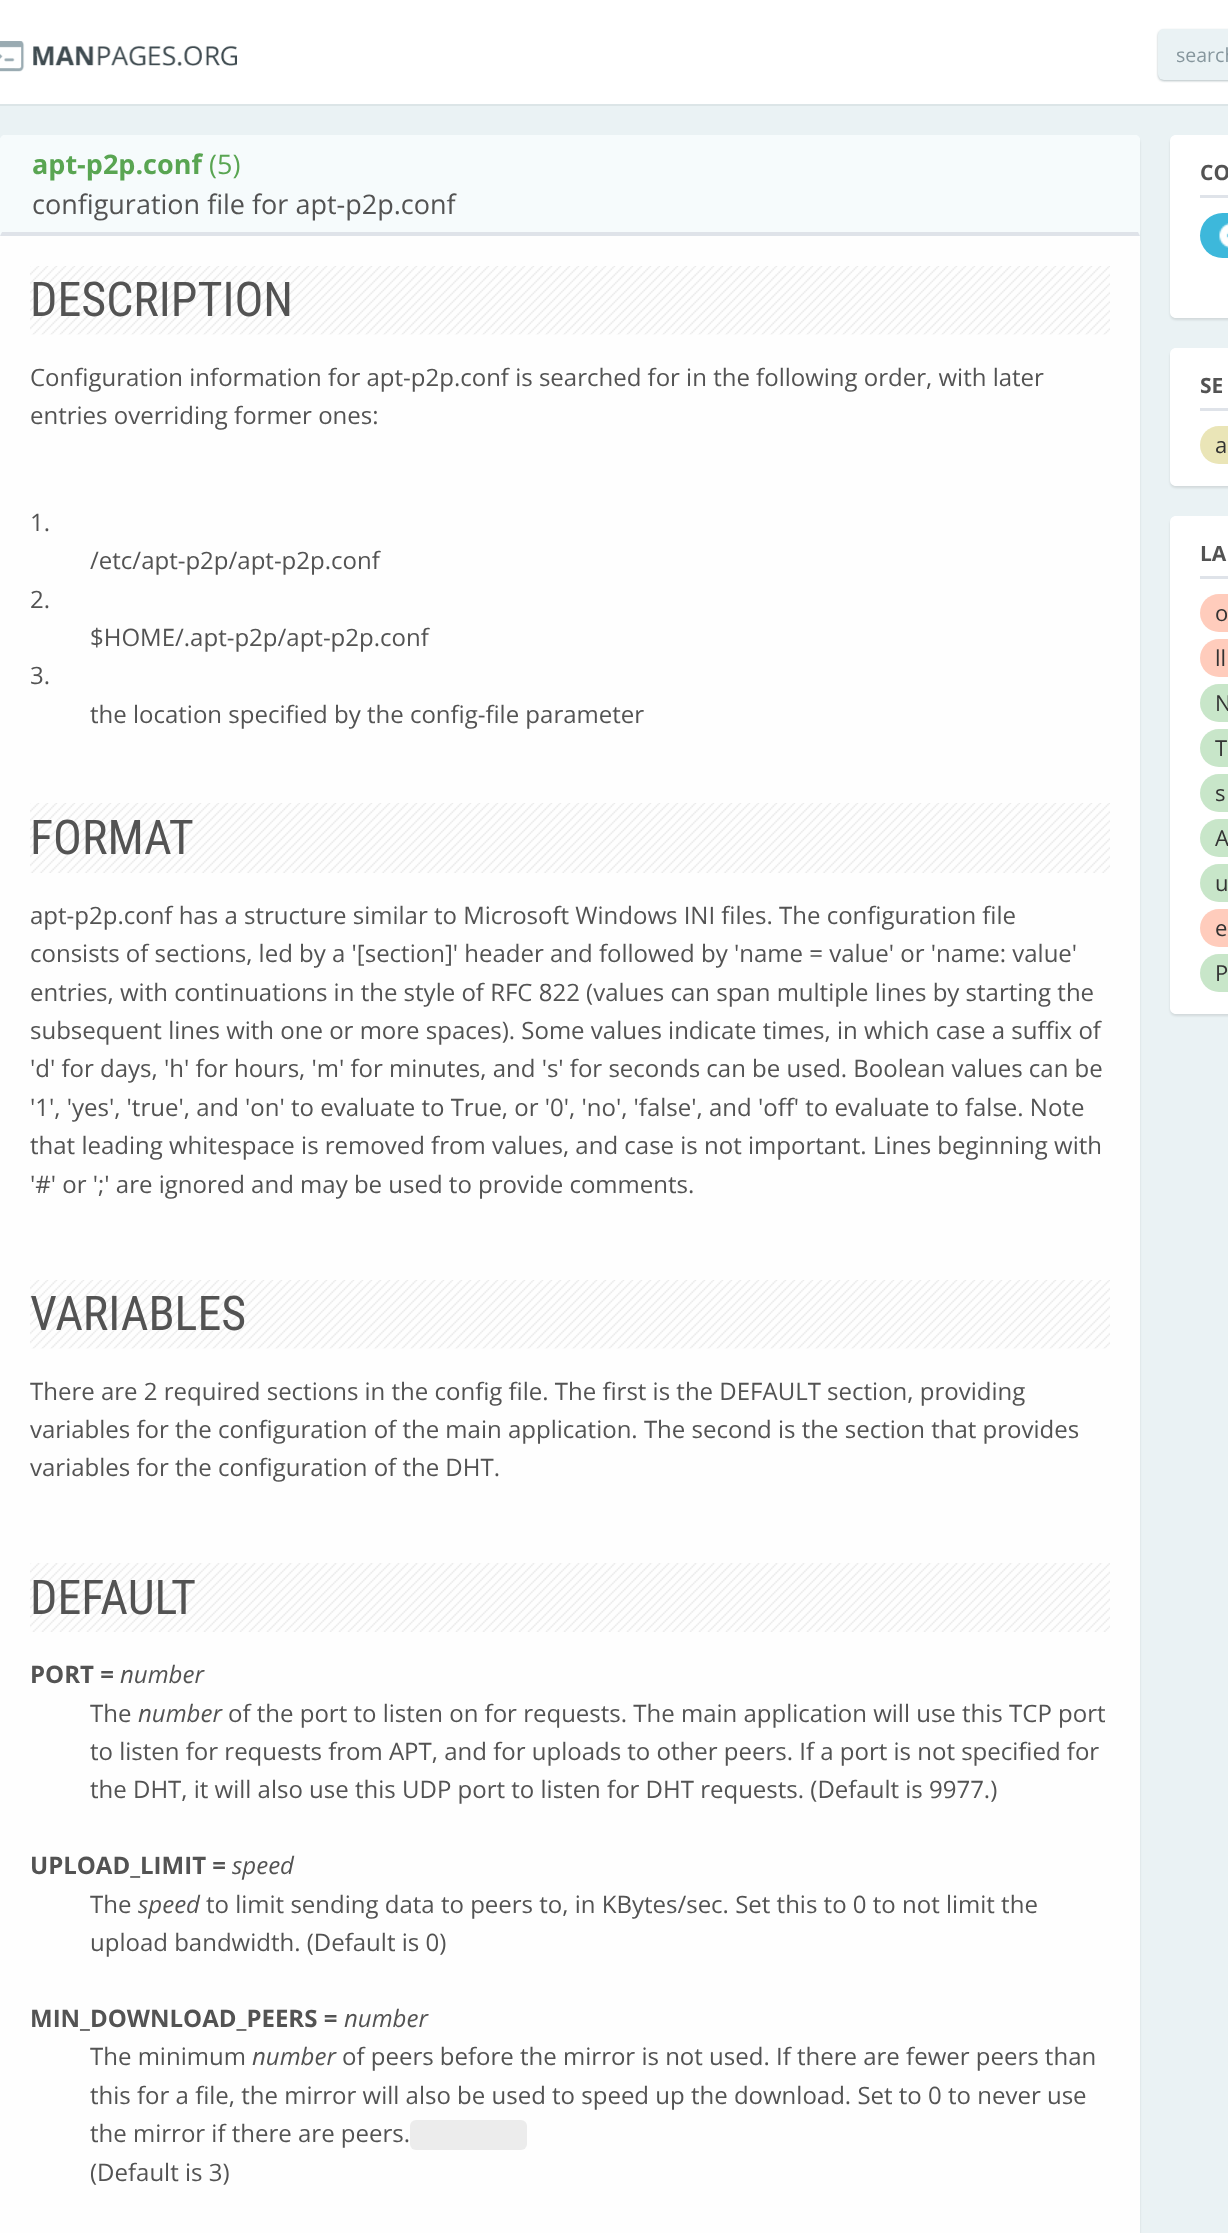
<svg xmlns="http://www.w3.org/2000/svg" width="1228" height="2233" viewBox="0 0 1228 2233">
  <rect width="100%" height="100%" fill="rgb(234,242,244)"/>
  <rect x="0" y="0" width="1228" height="104" fill="rgb(255,255,255)"/>
  <rect x="0" y="104" width="1228" height="2" fill="rgb(220,229,231)"/>
  <image x="0" y="41" width="237" height="31" href="pic1.png"/>
  <rect x="1158" y="30" width="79" height="51" rx="6" fill="rgba(6,47,55,0.3)" filter="blur(1px)"/>
  <rect x="1158" y="29" width="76" height="51" rx="6" fill="rgb(234,242,244)"/>
  <text x="1176" y="62" font-family="Open Sans" font-size="19.5" fill="rgb(134,150,157)">search</text>
  <rect x="0" y="137" width="1140" height="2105" rx="6" fill="rgba(0,0,0,0.1)" filter="blur(1px)"/>
  <path d="M6 135H1134C1137.5 135 1140 137.5 1140 141V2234H0V141C0 137.5 2.5 135 6 135Z" fill="rgb(254,254,254)"/>
  <path d="M5 135H1135C1138 135 1140 137 1140 140V236H0V140C0 137 2 135 5 135Z" fill="rgb(246,251,252)"/>
  <path d="M1140 236H0L2 232H1138Z" fill="rgb(223,227,233)"/>
  <text x="32" y="174" font-family="Open Sans" font-size="27" font-weight="bold" fill="rgb(89,165,82)">apt-p2p.conf</text>
  <text x="209" y="174" font-family="Open Sans" font-size="27" fill="rgb(89,165,82)">(5)</text>
  <text x="32" y="214" font-family="Open Sans" font-size="27" fill="rgb(83,83,83)">configuration file for apt-p2p.conf</text>
  <image x="30" y="266" width="1080" height="69" href="pic2.png"/>
  <text x="30" y="316" font-family="Roboto Condensed" font-size="48" fill="rgb(83,83,83)">DESCRIPTION</text>
  <g font-family="Open Sans" font-size="24" fill="rgb(83,83,83)">
    <text>
      <tspan x="30" y="386">Configuration information for apt-p2p.conf is searched for in the following order, with later</tspan>
      <tspan x="30" y="424">entries overriding former ones:</tspan>
    </text>
    <text x="30" y="531">1.</text>
    <text x="90" y="569">/etc/apt-p2p/apt-p2p.conf</text>
    <text x="30" y="608">2.</text>
    <text x="90" y="646">$HOME/.apt-p2p/apt-p2p.conf</text>
    <text x="30" y="684">3.</text>
    <text x="90" y="723">the location specified by the config-file parameter</text>
  </g>
  <image x="30" y="803" width="1080" height="70" href="pic3.png"/>
  <text x="30" y="854" font-family="Roboto Condensed" font-size="48" fill="rgb(83,83,83)">FORMAT</text>
  <g font-family="Open Sans" font-size="24" fill="rgb(83,83,83)">
    <text>
      <tspan x="30" y="924">apt-p2p.conf has a structure similar to Microsoft Windows INI files. The configuration file</tspan>
      <tspan x="30" y="962">consists of sections, led by a '[section]' header and followed by 'name = value' or 'name: value'</tspan>
      <tspan x="30" y="1001">entries, with continuations in the style of RFC 822 (values can span multiple lines by starting the</tspan>
      <tspan x="30" y="1039">subsequent lines with one or more spaces). Some values indicate times, in which case a suffix of</tspan>
      <tspan x="30" y="1077">'d' for days, 'h' for hours, 'm' for minutes, and 's' for seconds can be used. Boolean values can be</tspan>
      <tspan x="30" y="1116">'1', 'yes', 'true', and 'on' to evaluate to True, or '0', 'no', 'false', and 'off' to evaluate to false. Note</tspan>
      <tspan x="30" y="1154">that leading whitespace is removed from values, and case is not important. Lines beginning with</tspan>
      <tspan x="30" y="1193">'#' or ';' are ignored and may be used to provide comments.</tspan>
    </text>
  </g>
  <image x="30" y="1280" width="1080" height="69" href="pic2.png"/>
  <text x="30" y="1330" font-family="Roboto Condensed" font-size="48" fill="rgb(83,83,83)">VARIABLES</text>
  <g font-family="Open Sans" font-size="24" fill="rgb(83,83,83)">
    <text>
      <tspan x="30" y="1400">There are 2 required sections in the config file. The first is the DEFAULT section, providing</tspan>
      <tspan x="30" y="1438">variables for the configuration of the main application. The second is the section that provides</tspan>
      <tspan x="30" y="1476">variables for the configuration of the DHT.</tspan>
    </text>
  </g>
  <image x="30" y="1563" width="1080" height="69" href="pic4.png"/>
  <text x="30" y="1614" font-family="Roboto Condensed" font-size="48" fill="rgb(83,83,83)">DEFAULT</text>
  <text x="30" y="1683" font-family="Open Sans" font-size="24" font-weight="bold" fill="rgb(83,83,83)">PORT =</text>
  <text x="120" y="1683" font-family="Open Sans" font-size="24" font-style="italic" fill="rgb(83,83,83)">number</text>
  <text x="90" y="1722" font-family="Open Sans" font-size="24" fill="rgb(83,83,83)">The</text>
  <text x="138" y="1722" font-family="Open Sans" font-size="24" font-style="italic" fill="rgb(83,83,83)">number</text>
  <g font-family="Open Sans" font-size="24" fill="rgb(83,83,83)">
    <text x="228" y="1722">of the port to listen on for requests. The main application will use this TCP port</text>
    <text>
      <tspan x="90" y="1760">to listen for requests from APT, and for uploads to other peers. If a port is not specified for</tspan>
      <tspan x="90" y="1798">the DHT, it will also use this UDP port to listen for DHT requests. (Default is 9977.)</tspan>
    </text>
  </g>
  <text x="30" y="1874" font-family="Open Sans" font-size="24" font-weight="bold" fill="rgb(83,83,83)">UPLOAD_LIMIT =</text>
  <text x="232" y="1874" font-family="Open Sans" font-size="24" font-style="italic" fill="rgb(83,83,83)">speed</text>
  <text x="90" y="1913" font-family="Open Sans" font-size="24" fill="rgb(83,83,83)">The</text>
  <text x="138" y="1913" font-family="Open Sans" font-size="24" font-style="italic" fill="rgb(83,83,83)">speed</text>
  <g font-family="Open Sans" font-size="24" fill="rgb(83,83,83)">
    <text x="206" y="1913">to limit sending data to peers to, in KBytes/sec. Set this to 0 to not limit the</text>
    <text x="90" y="1951">upload bandwidth. (Default is 0)</text>
  </g>
  <text x="30" y="2027" font-family="Open Sans" font-size="24" font-weight="bold" fill="rgb(83,83,83)">MIN_DOWNLOAD_PEERS =</text>
  <text x="344" y="2027" font-family="Open Sans" font-size="24" font-style="italic" fill="rgb(83,83,83)">number</text>
  <text x="90" y="2065" font-family="Open Sans" font-size="24" fill="rgb(83,83,83)">The minimum</text>
  <text x="252" y="2065" font-family="Open Sans" font-size="24" font-style="italic" fill="rgb(83,83,83)">number</text>
  <g font-family="Open Sans" font-size="24" fill="rgb(83,83,83)">
    <text x="342" y="2065">of peers before the mirror is not used. If there are fewer peers than</text>
    <text>
      <tspan x="90" y="2104">this for a file, the mirror will also be used to speed up the download. Set to 0 to never use</tspan>
      <tspan x="90" y="2142">the mirror if there are peers.</tspan>
    </text>
  </g>
  <rect x="410" y="2120" width="117" height="30" rx="6" fill="rgb(236,236,236)"/>
  <text x="90" y="2181" font-family="Open Sans" font-size="24" fill="rgb(83,83,83)">(Default is 3)</text>
  <rect x="1170" y="137" width="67" height="183" rx="6" fill="rgba(0,0,0,0.1)" filter="blur(1px)"/>
  <path d="M1176 135H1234V318H1176C1172.5 318 1170 315.5 1170 312V141C1170 137.5 1172.5 135 1176 135Z" fill="rgb(255,255,255)"/>
  <rect x="1200" y="195" width="28" height="3" fill="rgb(223,227,233)"/>
  <text x="1200" y="180" font-family="Open Sans" font-size="21" font-weight="bold" fill="rgb(83,83,83)">CO</text>
  <rect x="1200" y="213" width="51" height="45" rx="22.5" fill="rgb(61,184,219)"/>
  <image x="1219" y="223" width="9" height="25" href="pic5.png"/>
  <rect x="1170" y="350" width="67" height="138" rx="6" fill="rgba(0,0,0,0.1)" filter="blur(1px)"/>
  <path d="M1176 348H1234V486H1176C1172.5 486 1170 483.5 1170 480V354C1170 350.5 1172.5 348 1176 348Z" fill="rgb(255,255,255)"/>
  <rect x="1200" y="408" width="28" height="3" fill="rgb(223,227,233)"/>
  <text x="1200" y="393" font-family="Open Sans" font-size="21" font-weight="bold" fill="rgb(83,83,83)">SE</text>
  <rect x="1200" y="426" width="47" height="38" rx="19" fill="rgb(234,229,183)"/>
  <text x="1215" y="453" font-family="Open Sans" font-size="22" fill="rgb(51,51,51)">a</text>
  <rect x="1170" y="518" width="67" height="498" rx="6" fill="rgba(0,0,0,0.1)" filter="blur(1px)"/>
  <path d="M1176 516H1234V1014H1176C1172.5 1014 1170 1011.5 1170 1008V522C1170 518.5 1172.5 516 1176 516Z" fill="rgb(255,255,255)"/>
  <rect x="1200" y="576" width="28" height="3" fill="rgb(223,227,233)"/>
  <text x="1200" y="561" font-family="Open Sans" font-size="21" font-weight="bold" fill="rgb(83,83,83)">LA</text>
  <rect x="1200" y="594" width="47" height="38" rx="19" fill="rgb(255,204,188)"/>
  <text x="1215" y="621" font-family="Open Sans" font-size="22" fill="rgb(51,51,51)">o</text>
  <rect x="1200" y="639" width="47" height="38" rx="19" fill="rgb(255,204,188)"/>
  <text x="1215" y="666" font-family="Open Sans" font-size="22" fill="rgb(51,51,51)">ll</text>
  <rect x="1200" y="684" width="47" height="38" rx="19" fill="rgb(200,230,201)"/>
  <text x="1215" y="711" font-family="Open Sans" font-size="22" fill="rgb(51,51,51)">N</text>
  <rect x="1200" y="729" width="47" height="38" rx="19" fill="rgb(200,230,201)"/>
  <text x="1215" y="756" font-family="Open Sans" font-size="22" fill="rgb(51,51,51)">T</text>
  <rect x="1200" y="774" width="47" height="38" rx="19" fill="rgb(200,230,201)"/>
  <text x="1215" y="801" font-family="Open Sans" font-size="22" fill="rgb(51,51,51)">s</text>
  <rect x="1200" y="819" width="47" height="38" rx="19" fill="rgb(200,230,201)"/>
  <text x="1215" y="846" font-family="Open Sans" font-size="22" fill="rgb(51,51,51)">A</text>
  <rect x="1200" y="864" width="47" height="38" rx="19" fill="rgb(200,230,201)"/>
  <text x="1215" y="891" font-family="Open Sans" font-size="22" fill="rgb(51,51,51)">u</text>
  <rect x="1200" y="909" width="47" height="38" rx="19" fill="rgb(255,204,188)"/>
  <text x="1215" y="936" font-family="Open Sans" font-size="22" fill="rgb(51,51,51)">e</text>
  <rect x="1200" y="954" width="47" height="38" rx="19" fill="rgb(200,230,201)"/>
  <text x="1215" y="981" font-family="Open Sans" font-size="22" fill="rgb(51,51,51)">P</text>
</svg>
